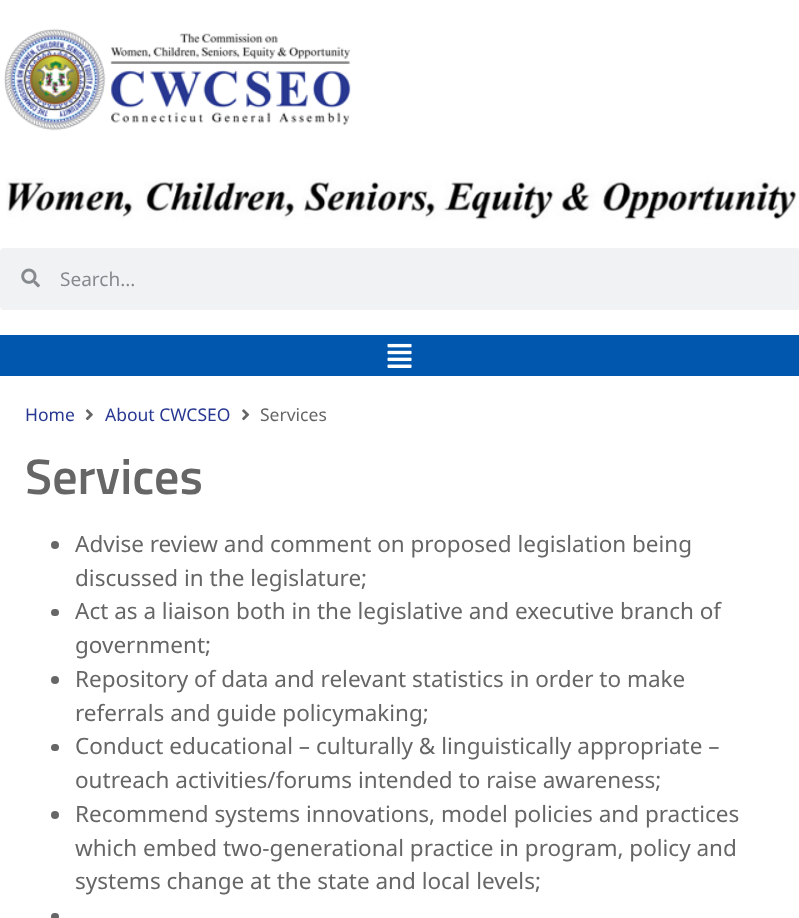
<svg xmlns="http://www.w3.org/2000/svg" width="799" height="918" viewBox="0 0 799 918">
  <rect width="100%" height="100%" fill="rgb(255,255,255)"/>
  <image x="3" y="28" width="348" height="103" href="pic1.png"/>
  <image x="6" y="178" width="791" height="42" href="pic2.png"/>
  <rect x="0" y="248" width="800" height="62" rx="4" fill="rgb(241,242,243)"/>
  <image x="21" y="268" width="19" height="20" href="pic3.png"/>
  <text x="60" y="286" font-family="Noto Sans" font-size="19" fill="rgb(134,138,142)">Search...</text>
  <rect x="0" y="335" width="799" height="41" fill="rgb(1,87,173)"/>
  <image x="387" y="343" width="25" height="25" href="pic4.png"/>
  <text x="25" y="421" font-family="Noto Sans" font-size="17.5" fill="rgb(40,56,145)">Home</text>
  <image x="85" y="409" width="8" height="12" href="pic5.png"/>
  <text x="105" y="421" font-family="Noto Sans" font-size="17.5" fill="rgb(40,56,145)">About CWCSEO</text>
  <image x="242" y="409" width="8" height="12" href="pic6.png"/>
  <text x="260" y="421" font-family="Noto Sans" font-size="17.5" fill="rgb(102,102,102)">Services</text>
  <text x="25" y="494" font-family="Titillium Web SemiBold" font-size="50" font-weight="600" fill="rgb(102,102,102)">Services</text>
  <circle cx="55" cy="545" r="4" fill="rgb(102,102,102)"/>
  <g font-family="Noto Sans" font-size="22.5" fill="rgb(102,102,102)">
    <text>
      <tspan x="75" y="552">Advise review and comment on proposed legislation being</tspan>
      <tspan x="75" y="586">discussed in the legislature;</tspan>
    </text>
  </g>
  <rect x="51" y="609" width="8" height="7" rx="3.5" fill="rgb(102,102,102)"/>
  <g font-family="Noto Sans" font-size="22.5" fill="rgb(102,102,102)">
    <text>
      <tspan x="75" y="619">Act as a liaison both in the legislative and executive branch of</tspan>
      <tspan x="75" y="653">government;</tspan>
    </text>
  </g>
  <circle cx="55" cy="680" r="4" fill="rgb(102,102,102)"/>
  <g font-family="Noto Sans" font-size="22.5" fill="rgb(102,102,102)">
    <text>
      <tspan x="75" y="687">Repository of data and relevant statistics in order to make</tspan>
      <tspan x="75" y="721">referrals and guide policymaking;</tspan>
    </text>
  </g>
  <rect x="51" y="744" width="8" height="7" rx="3.5" fill="rgb(102,102,102)"/>
  <g font-family="Noto Sans" font-size="22.5" fill="rgb(102,102,102)">
    <text>
      <tspan x="75" y="754">Conduct educational – culturally &amp; linguistically appropriate –</tspan>
      <tspan x="75" y="788">outreach activities/forums intended to raise awareness;</tspan>
    </text>
  </g>
  <circle cx="55" cy="815" r="4" fill="rgb(102,102,102)"/>
  <g font-family="Noto Sans" font-size="22.5" fill="rgb(102,102,102)">
    <text>
      <tspan x="75" y="822">Recommend systems innovations, model policies and practices</tspan>
      <tspan x="75" y="856">which embed two-generational practice in program, policy and</tspan>
      <tspan x="75" y="889">systems change at the state and local levels;</tspan>
    </text>
  </g>
  <rect x="51" y="913" width="8" height="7" rx="3.5" fill="rgb(102,102,102)"/>
</svg>
